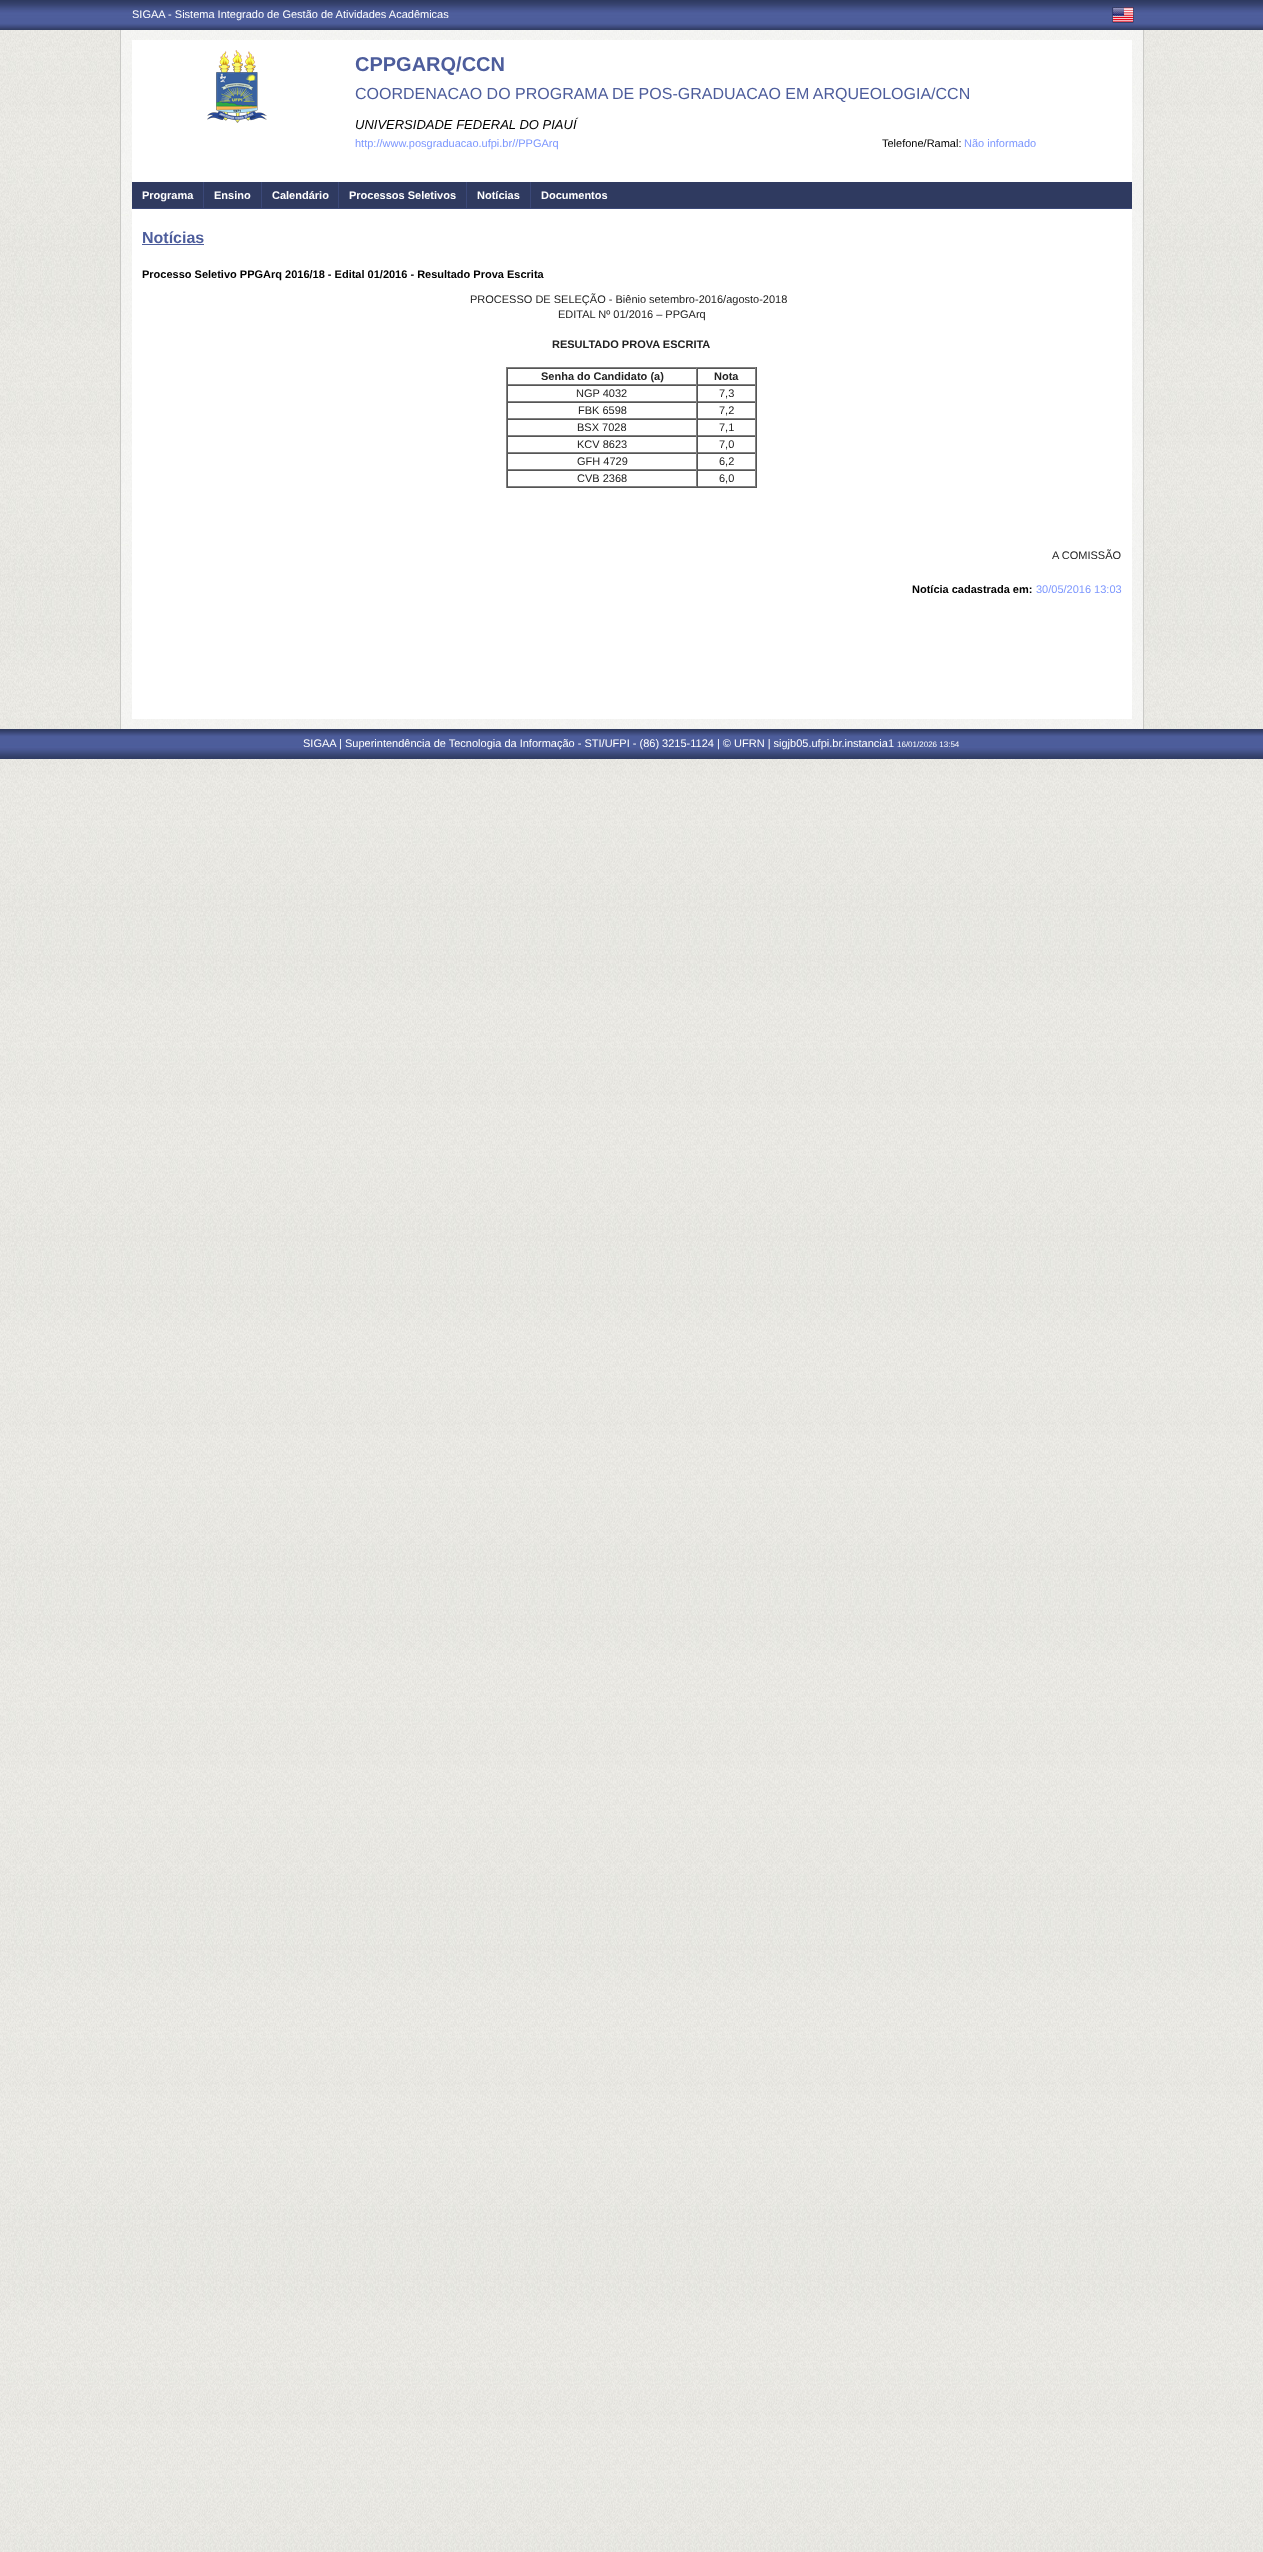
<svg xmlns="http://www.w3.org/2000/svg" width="1263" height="2552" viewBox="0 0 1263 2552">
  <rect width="100%" height="100%" fill="rgb(255,255,255)"/>
  <image x="0" y="30" width="1263" height="2522" href="pic1.png"/>
  <image x="0" y="0" width="1263" height="30" href="pic2.png"/>
  <image x="0" y="729" width="1263" height="30" href="pic3.png"/>
  <text x="132" y="18" font-family="Liberation Sans" font-size="11" fill="rgb(255,255,255)">SIGAA - Sistema Integrado de Gestão de Atividades Acadêmicas</text>
  <image x="1112" y="7" width="22" height="16" href="pic4.png"/>
  <image x="121" y="30" width="1022" height="699" href="pic5.png"/>
  <rect x="1143" y="30" width="1" height="699" fill="rgb(202,202,199)"/>
  <rect x="120" y="30" width="1" height="699" fill="rgb(202,202,199)"/>
  <rect x="132" y="40" width="1000" height="679" fill="rgb(255,255,255)"/>
  <image x="207" y="50" width="60" height="73" href="pic6.png"/>
  <text x="355" y="71" font-family="Liberation Sans" font-size="20" font-weight="bold" fill="rgb(77,93,156)">CPPGARQ/CCN</text>
  <text x="355" y="99" font-family="Liberation Sans" font-size="16" fill="rgb(77,93,156)">COORDENACAO DO PROGRAMA DE POS-GRADUACAO EM ARQUEOLOGIA/CCN</text>
  <text x="355" y="129" font-family="Liberation Sans" font-size="13" font-style="italic" fill="rgb(0,0,0)">UNIVERSIDADE FEDERAL DO PIAUÍ</text>
  <text x="355" y="147" font-family="Liberation Sans" font-size="11" fill="rgb(125,151,254)">http://www.posgraduacao.ufpi.br//PPGArq</text>
  <text x="882" y="147" font-family="Liberation Sans" font-size="11" fill="rgb(0,0,0)">Telefone/Ramal:</text>
  <text x="964" y="147" font-family="Liberation Sans" font-size="11" fill="rgb(125,151,254)">Não informado</text>
  <rect x="132" y="182" width="1000" height="26" fill="rgb(47,58,96)"/>
  <rect x="132" y="208" width="1000" height="1" fill="rgb(59,72,120)"/>
  <text x="142" y="199" font-family="Liberation Sans" font-size="11" font-weight="bold" fill="rgb(255,255,255)">Programa</text>
  <rect x="203" y="182" width="1" height="27" fill="rgb(59,72,120)"/>
  <text x="214" y="199" font-family="Liberation Sans" font-size="11" font-weight="bold" fill="rgb(255,255,255)">Ensino</text>
  <rect x="261" y="182" width="1" height="27" fill="rgb(59,72,120)"/>
  <text x="272" y="199" font-family="Liberation Sans" font-size="11" font-weight="bold" fill="rgb(255,255,255)">Calendário</text>
  <rect x="338" y="182" width="1" height="27" fill="rgb(59,72,120)"/>
  <text x="349" y="199" font-family="Liberation Sans" font-size="11" font-weight="bold" fill="rgb(255,255,255)">Processos Seletivos</text>
  <rect x="466" y="182" width="1" height="27" fill="rgb(59,72,120)"/>
  <text x="477" y="199" font-family="Liberation Sans" font-size="11" font-weight="bold" fill="rgb(255,255,255)">Notícias</text>
  <rect x="530" y="182" width="1" height="27" fill="rgb(59,72,120)"/>
  <text x="541" y="199" font-family="Liberation Sans" font-size="11" font-weight="bold" fill="rgb(255,255,255)">Documentos</text>
  <text x="142" y="243" font-family="Liberation Sans" font-size="16" font-weight="bold" fill="rgb(77,93,156)">Notícias</text>
  <rect x="142" y="244" width="62" height="1" fill="rgb(77,93,156)"/>
  <text x="142" y="278" font-family="Liberation Sans" font-size="11" font-weight="bold" fill="rgb(0,0,0)">Processo Seletivo PPGArq 2016/18 - Edital 01/2016 - Resultado Prova Escrita</text>
  <g font-family="Liberation Sans" font-size="11" fill="rgb(34,34,34)">
    <text x="470" y="303">PROCESSO DE SELEÇÃO - Biênio setembro-2016/agosto-2018</text>
    <text x="558" y="318">EDITAL Nº 01/2016 – PPGArq</text>
  </g>
  <text x="552" y="348" font-family="Liberation Sans" font-size="11" font-weight="bold" fill="rgb(34,34,34)">RESULTADO PROVA ESCRITA</text>
  <rect x="506" y="367" width="251" height="1" fill="rgb(128,128,128)"/>
  <rect x="756" y="367" width="1" height="121" fill="rgb(85,85,85)"/>
  <rect x="506" y="487" width="251" height="1" fill="rgb(85,85,85)"/>
  <rect x="506" y="367" width="1" height="121" fill="rgb(128,128,128)"/>
  <rect x="507" y="368" width="249" height="1" fill="rgb(85,85,85)"/>
  <rect x="696" y="368" width="1" height="17" fill="rgb(128,128,128)"/>
  <rect x="507" y="384" width="190" height="1" fill="rgb(128,128,128)"/>
  <rect x="507" y="368" width="1" height="17" fill="rgb(85,85,85)"/>
  <text x="541" y="380" font-family="Liberation Sans" font-size="11" font-weight="bold" fill="rgb(34,34,34)">Senha do Candidato (a)</text>
  <rect x="755" y="368" width="1" height="17" fill="rgb(128,128,128)"/>
  <rect x="697" y="384" width="59" height="1" fill="rgb(128,128,128)"/>
  <rect x="697" y="368" width="1" height="17" fill="rgb(85,85,85)"/>
  <text x="714" y="380" font-family="Liberation Sans" font-size="11" font-weight="bold" fill="rgb(34,34,34)">Nota</text>
  <rect x="507" y="385" width="249" height="1" fill="rgb(85,85,85)"/>
  <rect x="696" y="385" width="1" height="17" fill="rgb(128,128,128)"/>
  <rect x="507" y="401" width="190" height="1" fill="rgb(128,128,128)"/>
  <rect x="507" y="385" width="1" height="17" fill="rgb(85,85,85)"/>
  <text x="576" y="397" font-family="Liberation Sans" font-size="11" fill="rgb(34,34,34)">NGP 4032</text>
  <rect x="755" y="385" width="1" height="17" fill="rgb(128,128,128)"/>
  <rect x="697" y="401" width="59" height="1" fill="rgb(128,128,128)"/>
  <rect x="697" y="385" width="1" height="17" fill="rgb(85,85,85)"/>
  <text x="719" y="397" font-family="Liberation Sans" font-size="11" fill="rgb(34,34,34)">7,3</text>
  <rect x="507" y="402" width="249" height="1" fill="rgb(85,85,85)"/>
  <rect x="696" y="402" width="1" height="17" fill="rgb(128,128,128)"/>
  <rect x="507" y="418" width="190" height="1" fill="rgb(128,128,128)"/>
  <rect x="507" y="402" width="1" height="17" fill="rgb(85,85,85)"/>
  <text x="578" y="414" font-family="Liberation Sans" font-size="11" fill="rgb(34,34,34)">FBK 6598</text>
  <rect x="755" y="402" width="1" height="17" fill="rgb(128,128,128)"/>
  <rect x="697" y="418" width="59" height="1" fill="rgb(128,128,128)"/>
  <rect x="697" y="402" width="1" height="17" fill="rgb(85,85,85)"/>
  <text x="719" y="414" font-family="Liberation Sans" font-size="11" fill="rgb(34,34,34)">7,2</text>
  <rect x="507" y="419" width="249" height="1" fill="rgb(85,85,85)"/>
  <rect x="696" y="419" width="1" height="17" fill="rgb(128,128,128)"/>
  <rect x="507" y="435" width="190" height="1" fill="rgb(128,128,128)"/>
  <rect x="507" y="419" width="1" height="17" fill="rgb(85,85,85)"/>
  <text x="577" y="431" font-family="Liberation Sans" font-size="11" fill="rgb(34,34,34)">BSX 7028</text>
  <rect x="755" y="419" width="1" height="17" fill="rgb(128,128,128)"/>
  <rect x="697" y="435" width="59" height="1" fill="rgb(128,128,128)"/>
  <rect x="697" y="419" width="1" height="17" fill="rgb(85,85,85)"/>
  <text x="719" y="431" font-family="Liberation Sans" font-size="11" fill="rgb(34,34,34)">7,1</text>
  <rect x="507" y="436" width="249" height="1" fill="rgb(85,85,85)"/>
  <rect x="696" y="436" width="1" height="17" fill="rgb(128,128,128)"/>
  <rect x="507" y="452" width="190" height="1" fill="rgb(128,128,128)"/>
  <rect x="507" y="436" width="1" height="17" fill="rgb(85,85,85)"/>
  <text x="577" y="448" font-family="Liberation Sans" font-size="11" fill="rgb(34,34,34)">KCV 8623</text>
  <rect x="755" y="436" width="1" height="17" fill="rgb(128,128,128)"/>
  <rect x="697" y="452" width="59" height="1" fill="rgb(128,128,128)"/>
  <rect x="697" y="436" width="1" height="17" fill="rgb(85,85,85)"/>
  <text x="719" y="448" font-family="Liberation Sans" font-size="11" fill="rgb(34,34,34)">7,0</text>
  <rect x="507" y="453" width="249" height="1" fill="rgb(85,85,85)"/>
  <rect x="696" y="453" width="1" height="17" fill="rgb(128,128,128)"/>
  <rect x="507" y="469" width="190" height="1" fill="rgb(128,128,128)"/>
  <rect x="507" y="453" width="1" height="17" fill="rgb(85,85,85)"/>
  <text x="577" y="465" font-family="Liberation Sans" font-size="11" fill="rgb(34,34,34)">GFH 4729</text>
  <rect x="755" y="453" width="1" height="17" fill="rgb(128,128,128)"/>
  <rect x="697" y="469" width="59" height="1" fill="rgb(128,128,128)"/>
  <rect x="697" y="453" width="1" height="17" fill="rgb(85,85,85)"/>
  <text x="719" y="465" font-family="Liberation Sans" font-size="11" fill="rgb(34,34,34)">6,2</text>
  <rect x="507" y="470" width="249" height="1" fill="rgb(85,85,85)"/>
  <rect x="696" y="470" width="1" height="17" fill="rgb(128,128,128)"/>
  <rect x="507" y="486" width="190" height="1" fill="rgb(128,128,128)"/>
  <rect x="507" y="470" width="1" height="17" fill="rgb(85,85,85)"/>
  <text x="577" y="482" font-family="Liberation Sans" font-size="11" fill="rgb(34,34,34)">CVB 2368</text>
  <rect x="755" y="470" width="1" height="17" fill="rgb(128,128,128)"/>
  <rect x="697" y="486" width="59" height="1" fill="rgb(128,128,128)"/>
  <rect x="697" y="470" width="1" height="17" fill="rgb(85,85,85)"/>
  <g font-family="Liberation Sans" font-size="11" fill="rgb(34,34,34)">
    <text x="719" y="482">6,0</text>
    <text x="1052" y="559">A COMISSÃO</text>
  </g>
  <text x="912" y="593" font-family="Liberation Sans" font-size="11" font-weight="bold" fill="rgb(0,0,0)">Notícia cadastrada em:</text>
  <text x="1036" y="593" font-family="Liberation Sans" font-size="11" fill="rgb(125,151,254)">30/05/2016 13:03</text>
  <text x="303" y="747" font-family="Liberation Sans" font-size="11" fill="rgb(255,255,255)">SIGAA | Superintendência de Tecnologia da Informação - STI/UFPI - (86) 3215-1124 | © UFRN | sigjb05.ufpi.br.instancia1</text>
  <text x="897" y="747" font-family="Liberation Sans" font-size="8" fill="rgb(255,255,255)">16/01/2026 13:54</text>
</svg>
